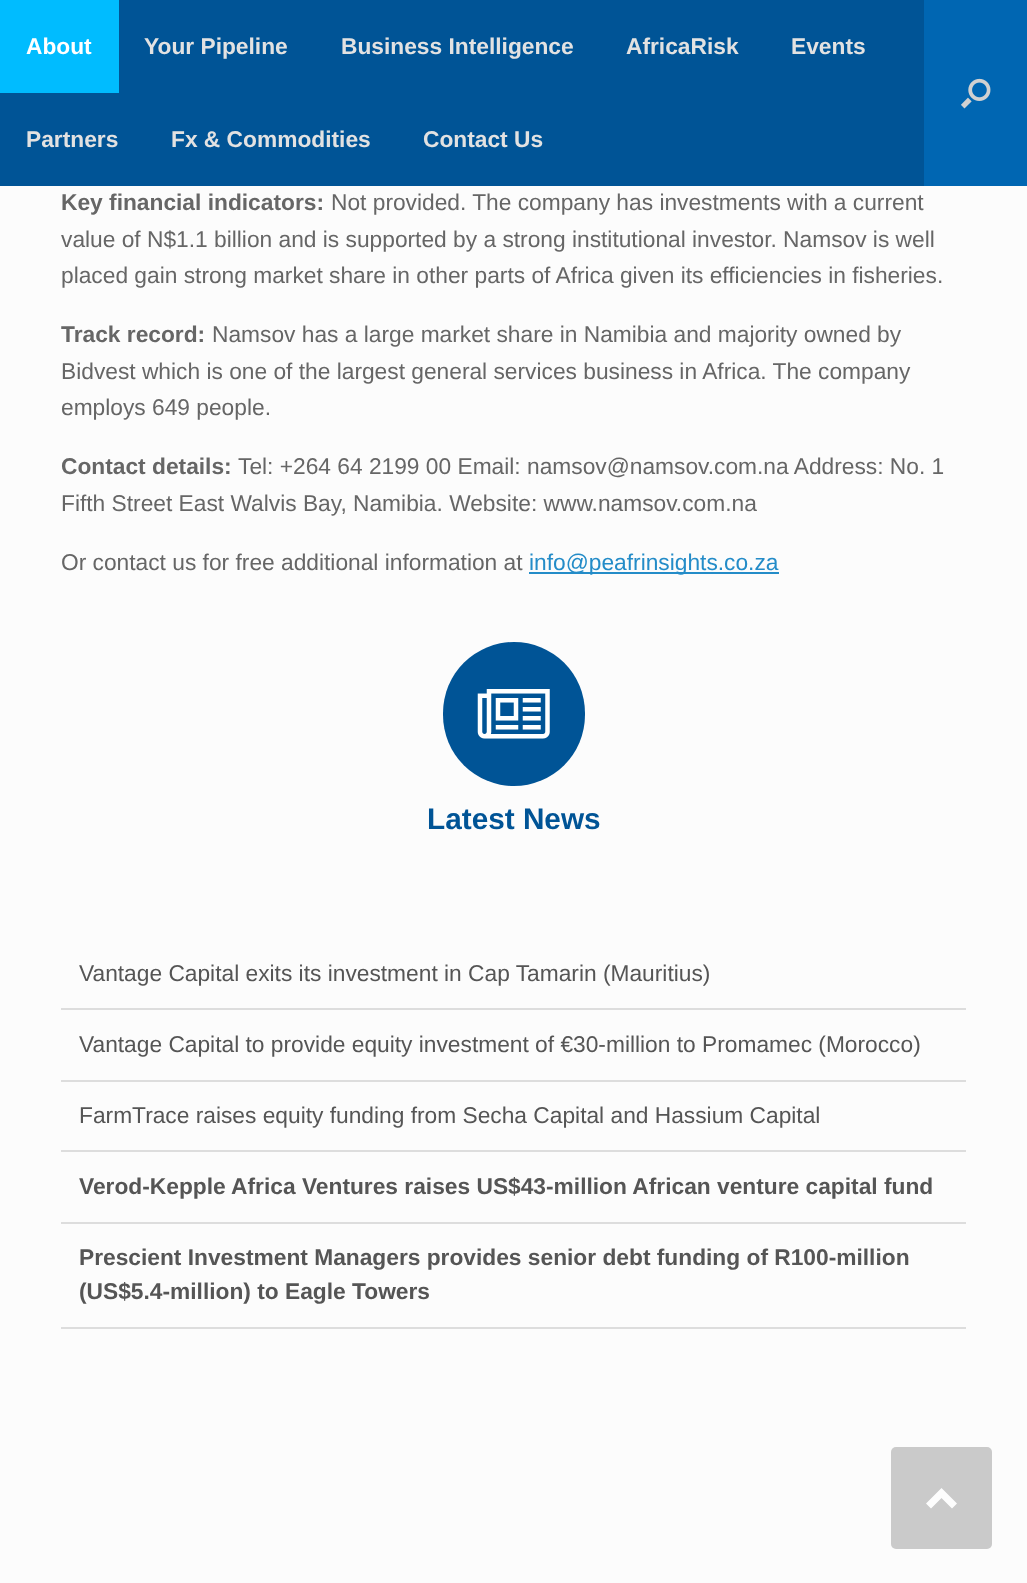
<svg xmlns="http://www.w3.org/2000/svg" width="1027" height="1583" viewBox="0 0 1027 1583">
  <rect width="100%" height="100%" fill="rgb(252,252,252)"/>
  <rect x="0" y="0" width="924" height="186" fill="rgb(0,84,150)"/>
  <rect x="0" y="0" width="119" height="93" fill="rgb(0,188,255)"/>
  <text x="26" y="54" font-family="Liberation Sans" font-size="22.75" font-weight="bold" fill="rgb(255,255,255)">About</text>
  <g font-family="Liberation Sans" font-size="22.75" font-weight="bold" fill="rgb(226,226,226)">
    <text x="144" y="54">Your Pipeline</text>
    <text x="341" y="54">Business Intelligence</text>
    <text x="626" y="54">AfricaRisk</text>
    <text x="791" y="54">Events</text>
    <text x="26" y="147">Partners</text>
    <text x="171" y="147">Fx &amp; Commodities</text>
    <text x="423" y="147">Contact Us</text>
  </g>
  <rect x="924" y="0" width="103" height="186" fill="rgb(0,102,178)"/>
  <image x="961" y="78" width="30" height="31" href="pic1.png"/>
  <text x="61" y="210" font-family="Liberation Sans" font-size="22.75" font-weight="bold" fill="rgb(102,102,102)">Key financial indicators:</text>
  <g font-family="Liberation Sans" font-size="22.75" fill="rgb(102,102,102)">
    <text x="331" y="210">Not provided. The company has investments with a current</text>
    <text>
      <tspan x="61" y="247">value of N$1.1 billion and is supported by a strong institutional investor. Namsov is well</tspan>
      <tspan x="61" y="283">placed gain strong market share in other parts of Africa given its efficiencies in fisheries.</tspan>
    </text>
  </g>
  <text x="61" y="342" font-family="Liberation Sans" font-size="22.75" font-weight="bold" fill="rgb(102,102,102)">Track record:</text>
  <g font-family="Liberation Sans" font-size="22.75" fill="rgb(102,102,102)">
    <text x="212" y="342">Namsov has a large market share in Namibia and majority owned by</text>
    <text>
      <tspan x="61" y="379">Bidvest which is one of the largest general services business in Africa. The company</tspan>
      <tspan x="61" y="415">employs 649 people.</tspan>
    </text>
  </g>
  <text x="61" y="474" font-family="Liberation Sans" font-size="22.75" font-weight="bold" fill="rgb(102,102,102)">Contact details:</text>
  <g font-family="Liberation Sans" font-size="22.75" fill="rgb(102,102,102)">
    <text x="238" y="474">Tel: +264 64 2199 00 Email: namsov@namsov.com.na Address: No. 1</text>
    <text x="61" y="511">Fifth Street East Walvis Bay, Namibia. Website: www.namsov.com.na</text>
    <text x="61" y="570">Or contact us for free additional information at</text>
  </g>
  <rect x="529" y="572" width="250" height="2" fill="rgb(36,140,200)"/>
  <text x="529" y="570" font-family="Liberation Sans" font-size="22.75" fill="rgb(36,140,200)">info@peafrinsights.co.za</text>
  <rect x="443" y="642" width="142" height="144" rx="71" fill="rgb(0,84,150)"/>
  <image x="477" y="689" width="73" height="50" href="pic2.png"/>
  <text x="427" y="829" font-family="Liberation Sans" font-size="29.75" font-weight="bold" fill="rgb(0,84,150)">Latest News</text>
  <rect x="61" y="1008" width="905" height="2" fill="rgb(221,221,221)"/>
  <text x="79" y="981" font-family="Liberation Sans" font-size="22.75" fill="rgb(85,85,85)">Vantage Capital exits its investment in Cap Tamarin (Mauritius)</text>
  <rect x="61" y="1080" width="905" height="2" fill="rgb(221,221,221)"/>
  <text x="79" y="1052" font-family="Liberation Sans" font-size="22.75" fill="rgb(85,85,85)">Vantage Capital to provide equity investment of €30-million to Promamec (Morocco)</text>
  <rect x="61" y="1150" width="905" height="2" fill="rgb(221,221,221)"/>
  <text x="79" y="1123" font-family="Liberation Sans" font-size="22.75" fill="rgb(85,85,85)">FarmTrace raises equity funding from Secha Capital and Hassium Capital</text>
  <rect x="61" y="1222" width="905" height="2" fill="rgb(221,221,221)"/>
  <text x="79" y="1194" font-family="Liberation Sans" font-size="22.75" font-weight="bold" fill="rgb(85,85,85)">Verod-Kepple Africa Ventures raises US$43-million African venture capital fund</text>
  <rect x="61" y="1327" width="905" height="2" fill="rgb(221,221,221)"/>
  <g font-family="Liberation Sans" font-size="22.75" font-weight="bold" fill="rgb(85,85,85)">
    <text>
      <tspan x="79" y="1265">Prescient Investment Managers provides senior debt funding of R100-million</tspan>
      <tspan x="79" y="1299">(US$5.4-million) to Eagle Towers</tspan>
    </text>
  </g>
  <rect x="891" y="1447" width="101" height="102" rx="5" fill="rgb(202,202,202)"/>
  <path d="M957 1503.5L941.5 1488L926 1503.5L931 1508.5L941.5 1498L952 1508.5Z" fill="rgb(253,253,253)"/>
</svg>
